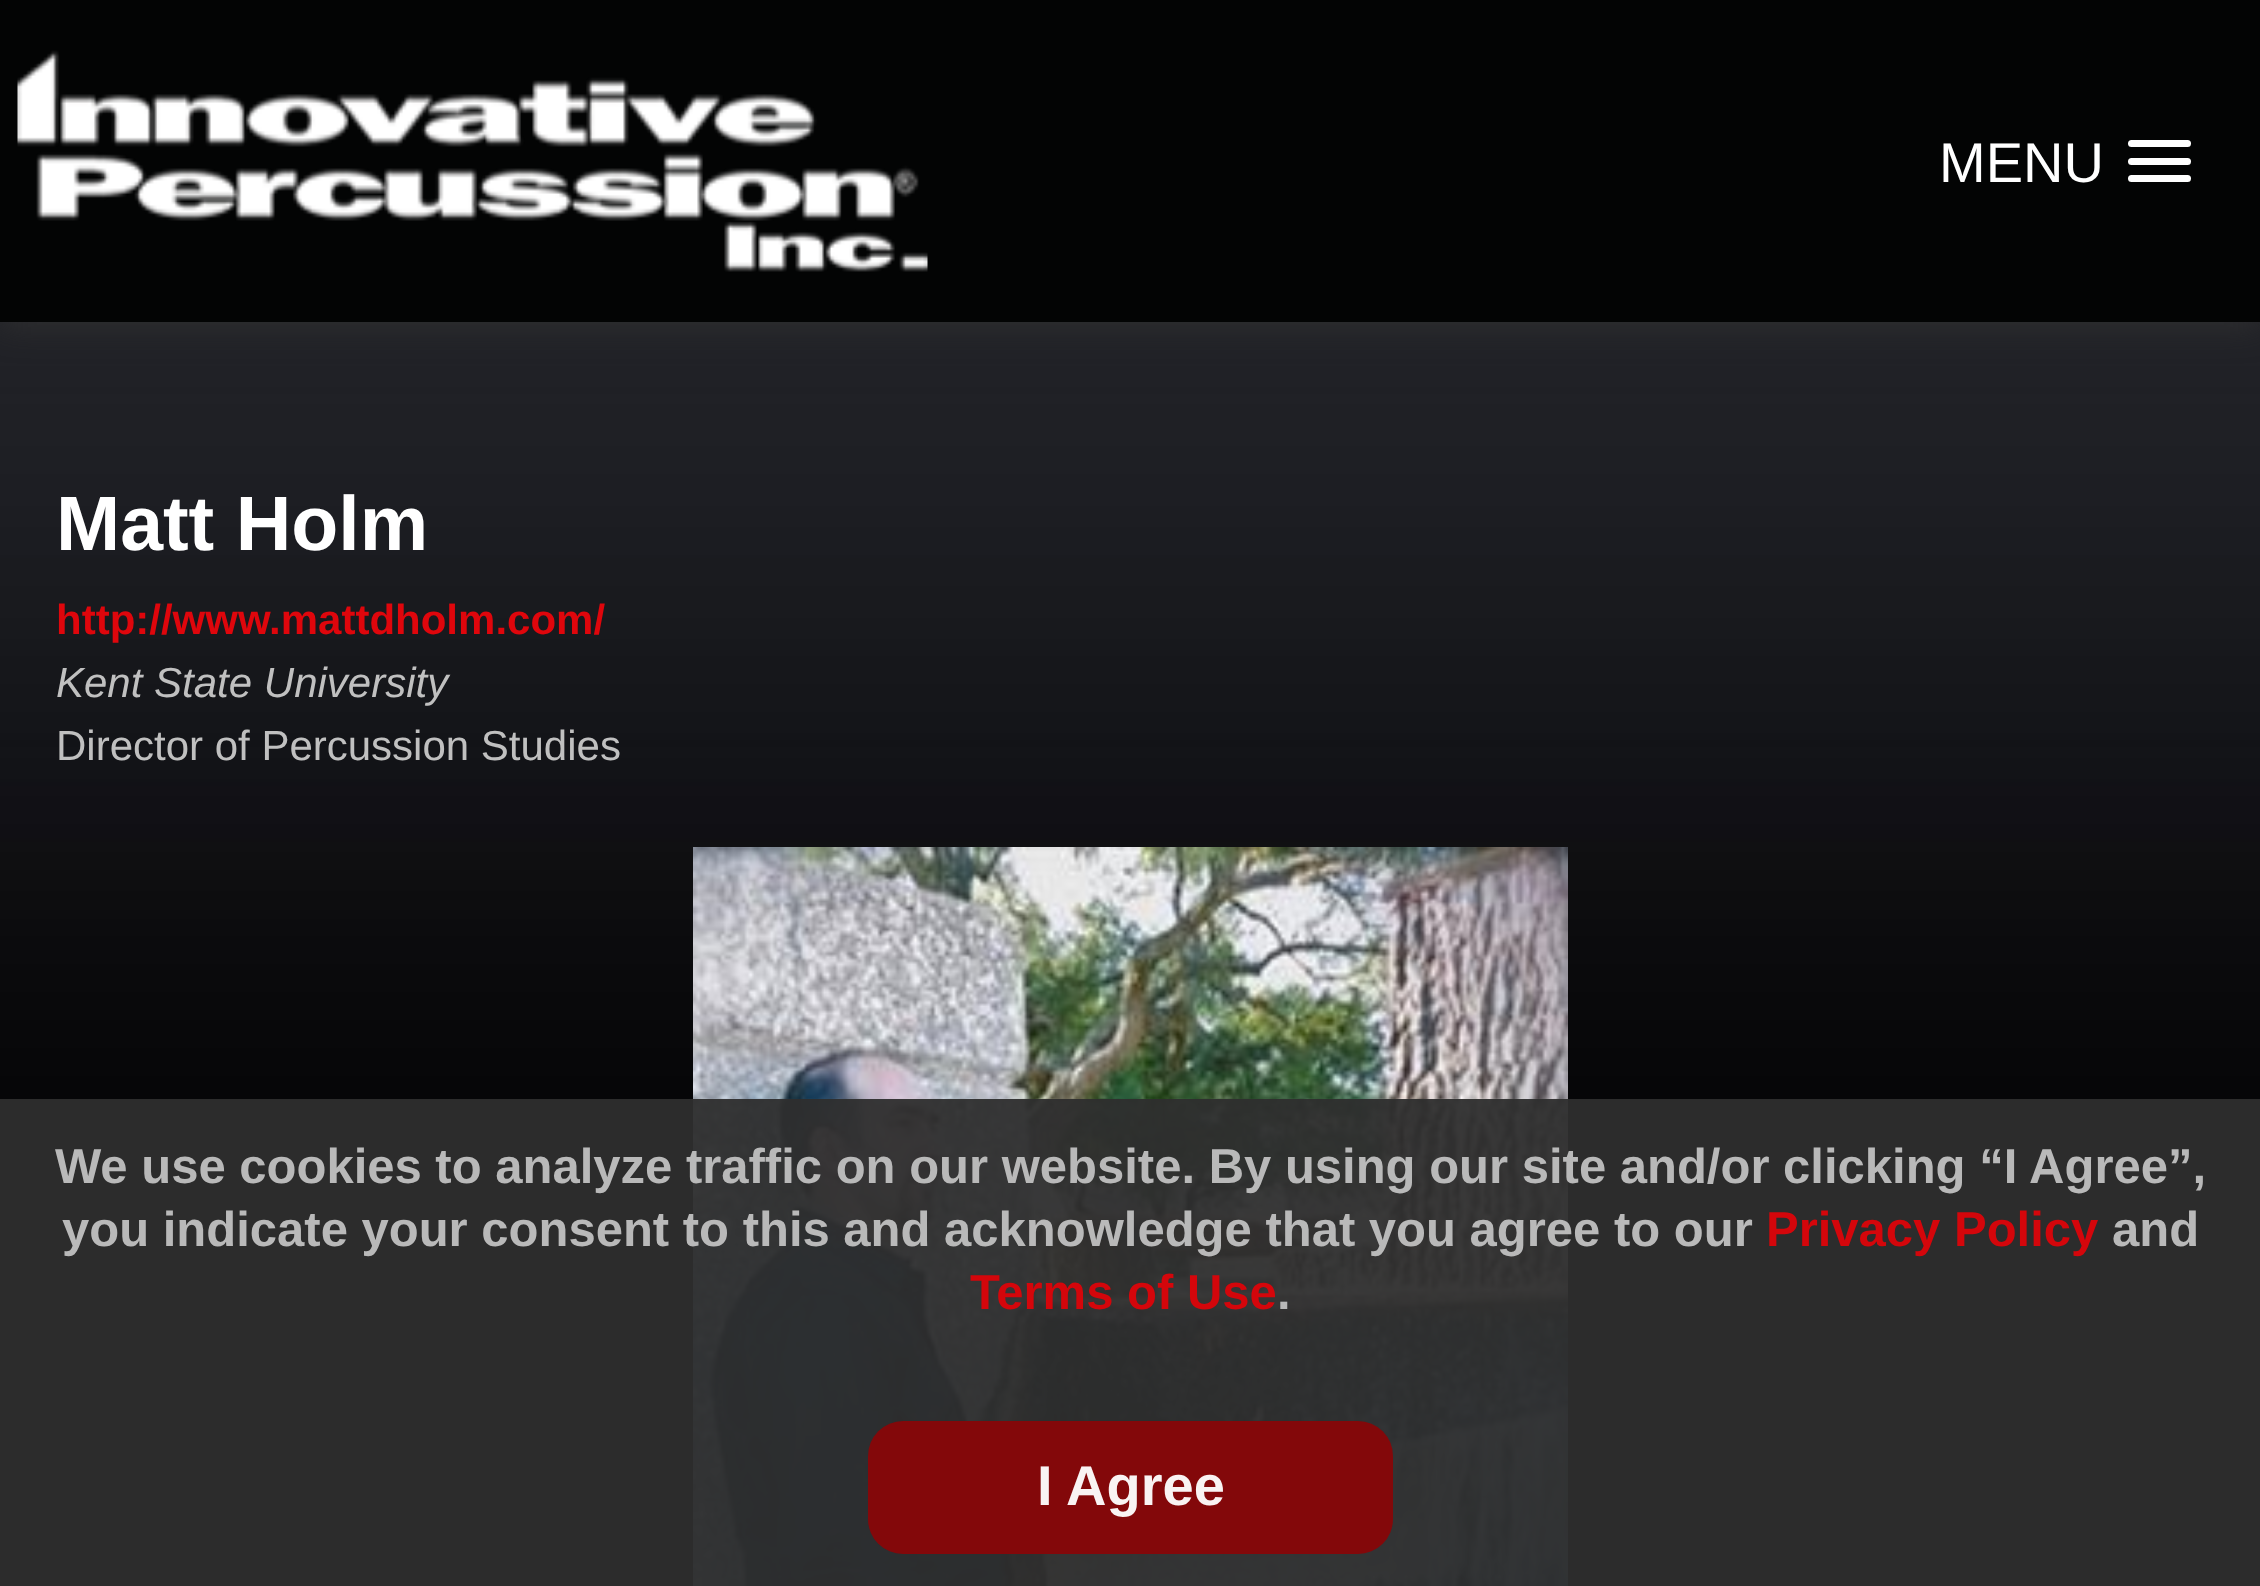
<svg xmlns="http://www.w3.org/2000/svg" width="2260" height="1586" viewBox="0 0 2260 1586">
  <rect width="100%" height="100%" fill="rgb(0,0,0)"/>
  <image x="0" y="322" width="2260" height="852" href="pic2.png"/>
  <rect x="0" y="0" width="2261" height="322" fill="rgb(51,51,51)" filter="blur(17.5px)"/>
  <rect x="0" y="0" width="2260" height="322" fill="rgb(3,4,4)"/>
  <image x="17" y="50" width="911" height="222" href="pic1.png"/>
  <text x="1939" y="182" font-family="Liberation Sans" font-size="56" fill="rgb(255,255,255)">MENU</text>
  <rect x="2128" y="140" width="63" height="7" rx="3.5" fill="rgb(255,255,255)"/>
  <rect x="2128" y="158" width="63" height="7" rx="3.5" fill="rgb(255,255,255)"/>
  <rect x="2128" y="175" width="63" height="7" rx="3.5" fill="rgb(255,255,255)"/>
  <text x="56" y="550" font-family="Liberation Sans" font-size="77" font-weight="bold" fill="rgb(255,255,255)">Matt Holm</text>
  <text x="56" y="634" font-family="Liberation Sans" font-size="42" font-weight="bold" fill="rgb(223,6,12)">http://www.mattdholm.com/</text>
  <text x="56" y="697" font-family="Liberation Sans" font-size="42" font-style="italic" fill="rgb(192,192,192)">Kent State University</text>
  <text x="56" y="760" font-family="Liberation Sans" font-size="42" fill="rgb(192,192,192)">Director of Percussion Studies</text>
  <image x="693" y="847" width="875" height="739" href="pic3.png"/>
  <rect x="0" y="1099" width="2260" height="487" fill="rgba(46,46,46,0.95)"/>
  <g font-family="Liberation Sans" font-size="49" font-weight="bold" fill="rgb(185,185,185)">
    <text x="55" y="1183">We use cookies to analyze traffic on our website. By using our site and/or clicking “I Agree”,</text>
    <text x="62" y="1246">you indicate your consent to this and acknowledge that you agree to our</text>
  </g>
  <text x="1766" y="1246" font-family="Liberation Sans" font-size="49" font-weight="bold" fill="rgb(212,6,11)">Privacy Policy</text>
  <text x="2112" y="1246" font-family="Liberation Sans" font-size="49" font-weight="bold" fill="rgb(185,185,185)">and</text>
  <text x="970" y="1309" font-family="Liberation Sans" font-size="49" font-weight="bold" fill="rgb(212,6,11)">Terms of Use</text>
  <text x="1277" y="1309" font-family="Liberation Sans" font-size="49" font-weight="bold" fill="rgb(185,185,185)">.</text>
  <rect x="868" y="1421" width="525" height="133" rx="35" fill="rgba(136,6,8,0.95)"/>
  <text x="1037" y="1505" font-family="Liberation Sans" font-size="56" font-weight="bold" fill="rgb(249,243,243)">I Agree</text>
</svg>
